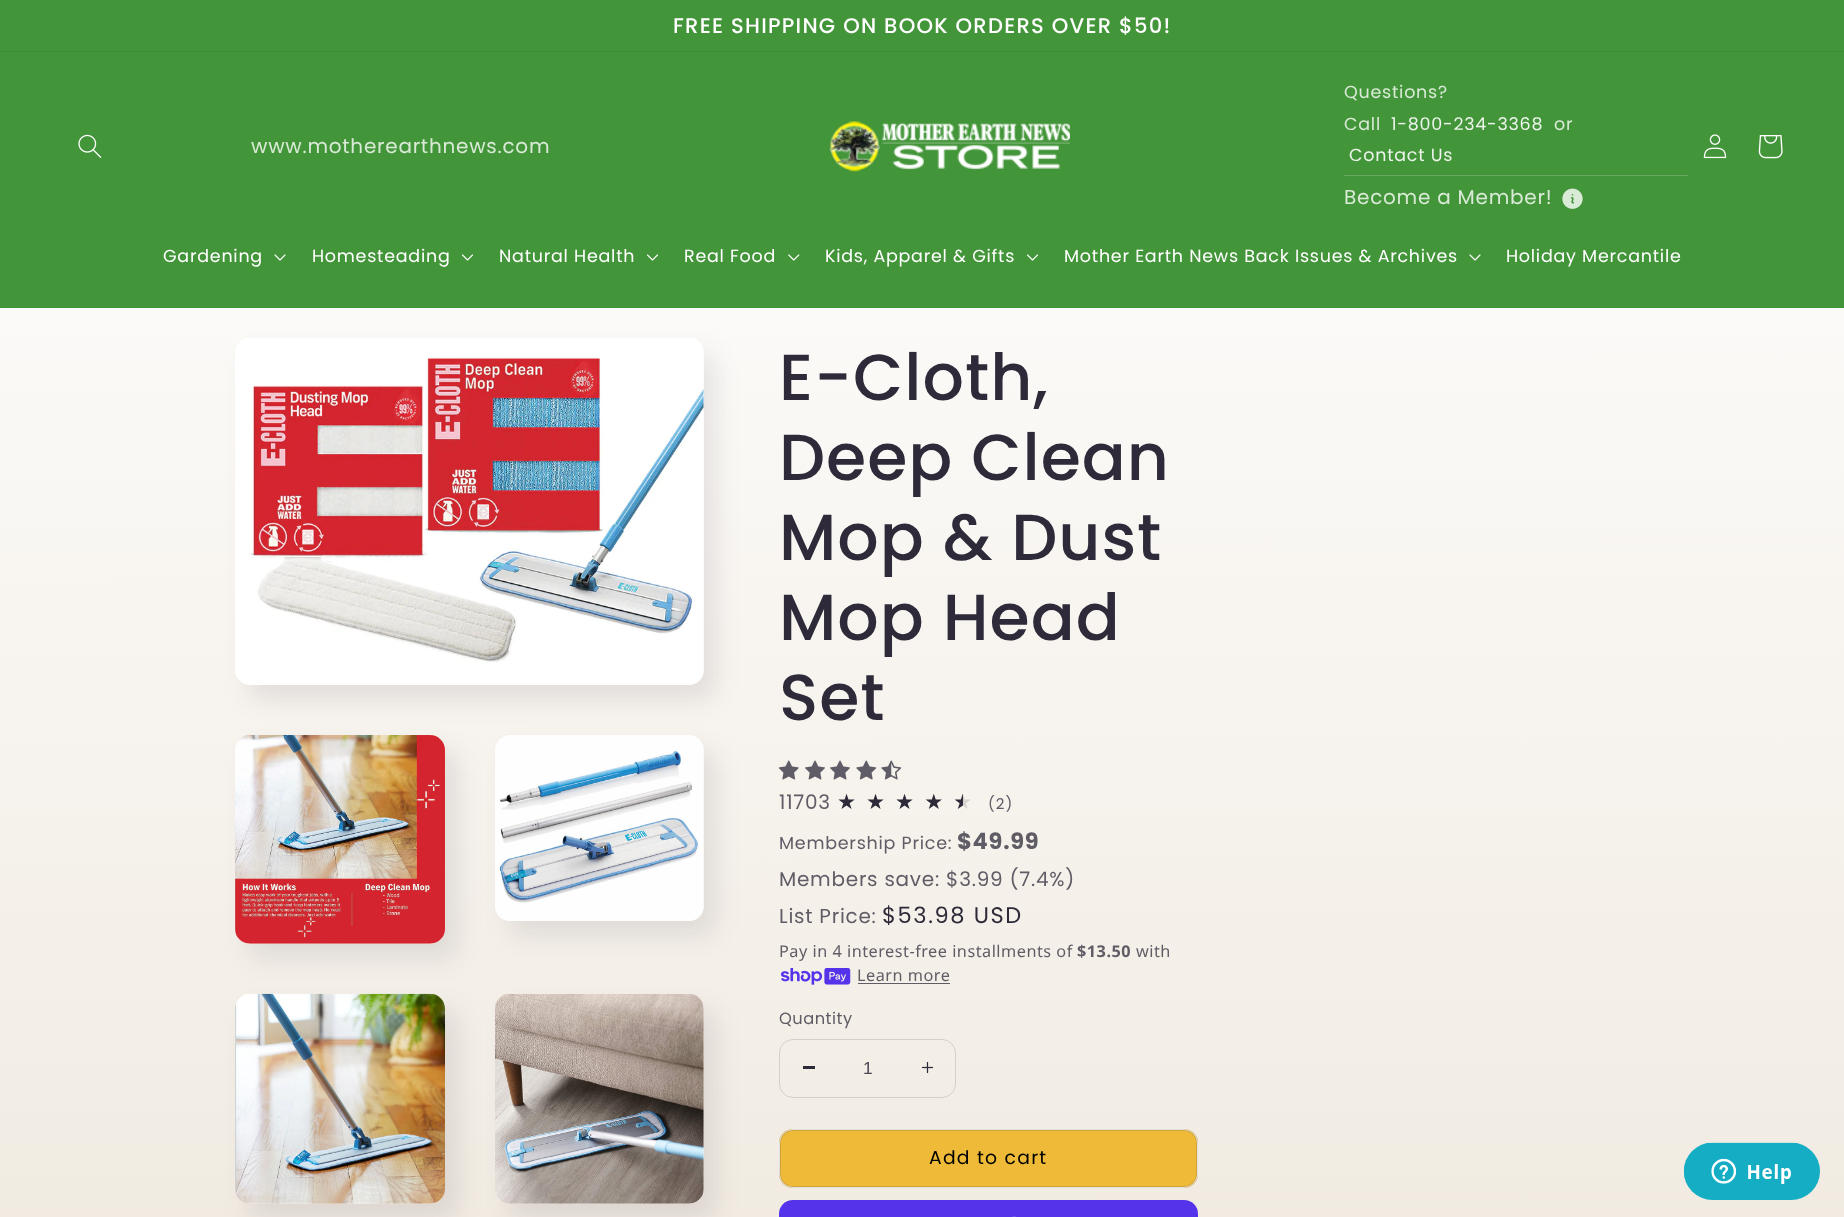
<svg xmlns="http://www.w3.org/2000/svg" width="1844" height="1217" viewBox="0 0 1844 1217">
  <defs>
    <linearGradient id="g1" gradientUnits="userSpaceOnUse" x1="837" y1="802" x2="982" y2="802"><stop offset="0.87" stop-color="rgb(46,42,57)"/><stop offset="0.87" stop-color="rgb(216,212,209)"/></linearGradient>
    <linearGradient id="g2" gradientUnits="userSpaceOnUse" x1="922" y1="0" x2="923" y2="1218"><stop offset="0" stop-color="rgb(255,255,255)"/><stop offset="1" stop-color="rgb(241,235,226)"/></linearGradient>
  </defs>
  <rect width="100%" height="100%" fill="rgb(255,255,255)"/>
  <rect x="0" y="308" width="1844" height="909" fill="url(#g2)"/>
  <rect x="0" y="0" width="1844" height="308" fill="rgb(67,149,57)"/>
  <rect x="0" y="51" width="1844" height="1" fill="rgb(65,140,57)"/>
  <text x="673" y="33" font-family="Poppins" font-size="21.1" font-weight="500" letter-spacing="1.25" fill="rgb(255,255,255)">FREE SHIPPING ON BOOK ORDERS OVER $50!</text>
  <image x="78" y="134" width="24" height="24" href="pic1.png"/>
  <text x="251" y="153" font-family="Poppins" font-size="20" letter-spacing="0.75" fill="rgb(217,234,215)">www.motherearthnews.com</text>
  <image x="829" y="121" width="241" height="51" href="pic2.png"/>
  <rect x="1344" y="175" width="344" height="1" fill="rgb(105,170,97)"/>
  <g font-family="Poppins" font-size="17.5" letter-spacing="0.75" fill="rgb(217,234,215)">
    <text>
      <tspan x="1344" y="98">Questions?</tspan>
      <tspan x="1344" y="130">Call</tspan>
    </text>
  </g>
  <text x="1391" y="130" font-family="Poppins" font-size="17.5" letter-spacing="0.75" fill="rgb(236,244,235)">1-800-234-3368</text>
  <text x="1554" y="130" font-family="Poppins" font-size="17.5" letter-spacing="0.75" fill="rgb(217,234,215)">or</text>
  <text x="1349" y="161" font-family="Poppins" font-size="17.5" letter-spacing="0.75" fill="rgb(236,244,235)">Contact Us</text>
  <text x="1344" y="204" font-family="Poppins" font-size="20" letter-spacing="0.75" fill="rgb(217,234,215)">Become a Member!</text>
  <image x="1562" y="188" width="21" height="21" href="pic3.png"/>
  <image x="1703" y="134" width="24" height="25" href="pic4.png"/>
  <image x="1758" y="135" width="25" height="24" href="pic5.png"/>
  <text x="163" y="262" font-family="Poppins" font-size="17.5" letter-spacing="0.75" fill="rgb(255,255,255)">Gardening</text>
  <image x="274" y="254" width="12" height="7" href="pic6.png"/>
  <text x="312" y="262" font-family="Poppins" font-size="17.5" letter-spacing="0.75" fill="rgb(255,255,255)">Homesteading</text>
  <image x="462" y="254" width="11" height="7" href="pic7.png"/>
  <text x="499" y="262" font-family="Poppins" font-size="17.5" letter-spacing="0.75" fill="rgb(255,255,255)">Natural Health</text>
  <image x="647" y="254" width="11" height="7" href="pic7.png"/>
  <text x="684" y="262" font-family="Poppins" font-size="17.5" letter-spacing="0.75" fill="rgb(255,255,255)">Real Food</text>
  <image x="788" y="254" width="12" height="7" href="pic8.png"/>
  <text x="825" y="262" font-family="Poppins" font-size="17.5" letter-spacing="0.75" fill="rgb(255,255,255)">Kids, Apparel &amp; Gifts</text>
  <image x="1027" y="254" width="11" height="7" href="pic7.png"/>
  <text x="1064" y="262" font-family="Poppins" font-size="17.5" letter-spacing="0.75" fill="rgb(255,255,255)">Mother Earth News Back Issues &amp; Archives</text>
  <image x="1469" y="254" width="12" height="7" href="pic6.png"/>
  <text x="1506" y="262" font-family="Poppins" font-size="17.5" letter-spacing="0.75" fill="rgb(255,255,255)">Holiday Mercantile</text>
  <rect x="248" y="353" width="468" height="347" rx="15" fill="rgba(46,42,57,0.1)" filter="blur(12.5px)"/>
  <rect x="235" y="338" width="469" height="347" rx="15" fill="url(#g2)"/>
  <image x="235" y="338" width="469" height="347" href="pic9.png"/>
  <rect x="248" y="750" width="210" height="209" rx="15" fill="rgba(46,42,57,0.1)" filter="blur(12.5px)"/>
  <rect x="235" y="735" width="210" height="209" rx="15" fill="url(#g2)"/>
  <image x="235" y="735" width="210" height="209" href="pic10.png"/>
  <rect x="508" y="750" width="208" height="186" rx="15" fill="rgba(46,42,57,0.1)" filter="blur(12.5px)"/>
  <rect x="495" y="735" width="209" height="186" rx="15" fill="url(#g2)"/>
  <image x="495" y="735" width="209" height="186" href="pic11.png"/>
  <rect x="248" y="1009" width="210" height="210" rx="15" fill="rgba(46,42,57,0.1)" filter="blur(12.5px)"/>
  <rect x="235" y="994" width="210" height="210" rx="15" fill="url(#g2)"/>
  <image x="235" y="993" width="210" height="211" href="pic12.png"/>
  <rect x="508" y="1009" width="208" height="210" rx="15" fill="rgba(46,42,57,0.1)" filter="blur(12.5px)"/>
  <rect x="495" y="994" width="209" height="210" rx="15" fill="url(#g2)"/>
  <image x="495" y="994" width="209" height="210" href="pic13.png"/>
  <g font-family="Poppins" font-size="65" font-weight="500" letter-spacing="1" fill="rgb(46,42,57)">
    <text>
      <tspan x="779" y="400">E-Cloth,</tspan>
      <tspan x="779" y="480">Deep Clean</tspan>
      <tspan x="779" y="560">Mop &amp; Dust</tspan>
      <tspan x="779" y="640">Mop Head</tspan>
      <tspan x="779" y="720">Set</tspan>
    </text>
  </g>
  <image x="778" y="760" width="21" height="20" href="pic14.png"/>
  <image x="805" y="760" width="20" height="20" href="pic15.png"/>
  <image x="830" y="760" width="20" height="20" href="pic15.png"/>
  <image x="856" y="760" width="21" height="20" href="pic16.png"/>
  <image x="881" y="760" width="21" height="20" href="pic17.png"/>
  <text x="779" y="809" font-family="Poppins" font-size="20" letter-spacing="0.75" fill="rgb(96,92,102)">11703</text>
  <text x="837" y="809" font-family="DejaVu Sans" font-size="21.25" letter-spacing="10" fill="url(#g1)">★★★★★</text>
  <text x="988" y="809" font-family="Poppins" font-size="15" letter-spacing="1" fill="rgb(96,92,102)">(2)</text>
  <text x="779" y="849" font-family="Poppins" font-size="17.5" letter-spacing="0.75" fill="rgb(96,92,102)">Membership Price:</text>
  <text x="957" y="849" font-family="Poppins" font-size="22.5" font-weight="bold" letter-spacing="0.75" fill="rgb(96,92,102)">$49.99</text>
  <g font-family="Poppins" font-size="20" letter-spacing="0.75" fill="rgb(96,92,102)">
    <text>
      <tspan x="779" y="886">Members save: $3.99 (7.4%)</tspan>
      <tspan x="779" y="923">List Price:</tspan>
    </text>
  </g>
  <text x="882" y="923" font-family="Poppins" font-size="22.5" letter-spacing="1.6" fill="rgb(46,42,57)">$53.98 USD</text>
  <text x="779" y="957" font-family="Noto Sans" font-size="16.25" letter-spacing="0.5" fill="rgb(96,92,102)">Pay in 4 interest-free installments of</text>
  <text x="1077" y="957" font-family="Noto Sans" font-size="16.25" font-weight="bold" letter-spacing="0.5" fill="rgb(96,92,102)">$13.50</text>
  <text x="1136" y="957" font-family="Noto Sans" font-size="16.25" letter-spacing="0.5" fill="rgb(96,92,102)">with</text>
  <image x="781" y="968" width="70" height="17" href="pic18.png"/>
  <text x="857" y="981" font-family="Noto Sans" font-size="16.25" letter-spacing="0.5" fill="rgb(96,92,102)">Learn more</text>
  <rect x="858" y="983" width="92" height="1" fill="rgb(96,91,101)"/>
  <text x="779" y="1024" font-family="Poppins" font-size="16.25" letter-spacing="0.5" fill="rgb(96,92,102)">Quantity</text>
  <rect x="803" y="1066" width="12" height="3" fill="rgb(46,42,57)"/>
  <image x="921" y="1061" width="13" height="13" href="pic19.png"/>
  <rect x="779.5" y="1039.5" width="176" height="58" rx="13.5" fill="none" stroke="rgb(213,208,204)"/>
  <text x="863" y="1074" font-family="Liberation Sans" font-size="17.5" fill="rgb(76,71,83)">1</text>
  <rect x="779" y="1129" width="419" height="59" rx="14" fill="rgb(238,186,55)"/>
  <rect x="779.5" y="1129.5" width="418" height="58" rx="13.5" fill="none" stroke="rgb(255,255,255)"/>
  <rect x="780" y="1130" width="417" height="57" rx="13" fill="none" stroke="rgba(46,42,57,0.15)" stroke-width="2"/>
  <text x="929" y="1164" font-family="Poppins" font-size="18.75" letter-spacing="1.25" fill="rgb(0,0,0)">Add to cart</text>
  <rect x="779" y="1200" width="419" height="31" rx="14" fill="rgb(84,51,235)"/>
  <image x="1012" y="1216" width="4" height="1" href="pic20.png"/>
  <image x="1684" y="1142" width="136" height="58" href="pic21.png"/>
</svg>
